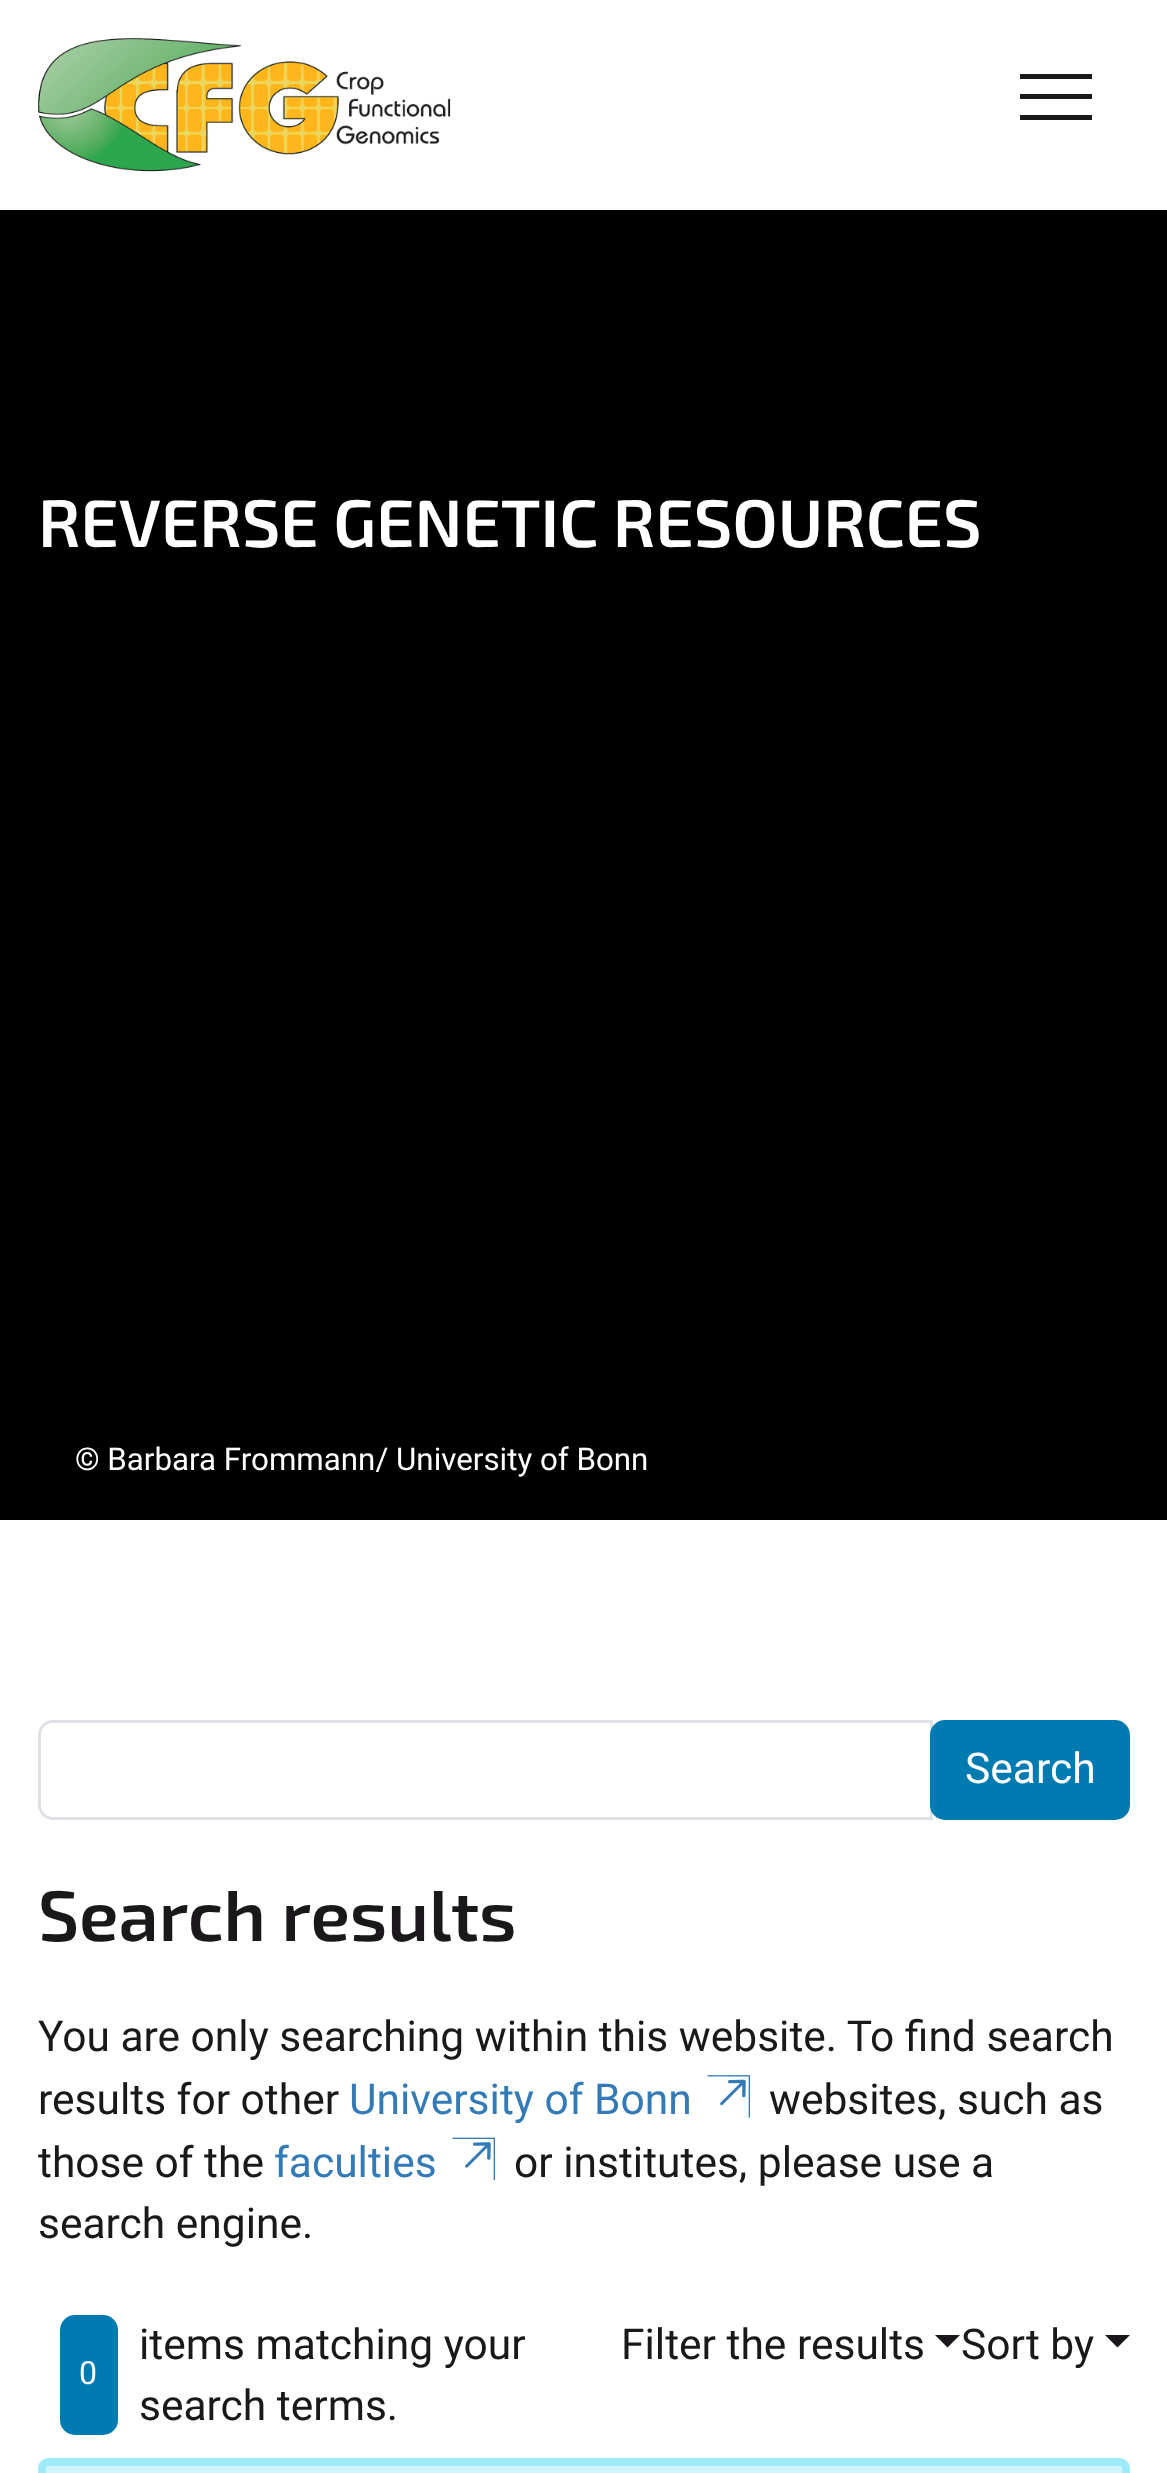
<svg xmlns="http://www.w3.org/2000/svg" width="1167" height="2473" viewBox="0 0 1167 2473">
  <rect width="100%" height="100%" fill="rgb(255,255,255)"/>
  <image x="37" y="37" width="414" height="135" href="pic1.png"/>
  <path d="M1020 120H1092V115H1020ZM1020 99H1092V94H1020ZM1020 74V79H1092V74Z" fill="rgb(26,24,27)"/>
  <rect x="0" y="210" width="1167" height="1310" fill="rgb(0,0,0)"/>
  <text x="38" y="547" font-family="'Exo 2'" font-size="67.1" font-weight="600" fill="rgb(255,255,255)">REVERSE GENETIC RESOURCES</text>
  <text x="75" y="1470" font-family="Roboto" font-size="31.3" fill="rgb(255,255,255)">© Barbara Frommann/ University of Bonn</text>
  <path d="M53 1721.5H931.5V1818.5H53C45.5 1818.5 39.5 1812.5 39.5 1805V1735C39.5 1727.5 45.5 1721.5 53 1721.5Z" fill="none" stroke="rgb(222,226,230)" stroke-width="3"/>
  <rect x="931.5" y="1721.5" width="197" height="97" rx="13.5" fill="rgb(0,123,177)" stroke="rgb(0,123,177)" stroke-width="3"/>
  <text x="965" y="1783" font-family="Roboto" font-size="42.5" fill="rgb(255,255,255)">Search</text>
  <text x="38" y="1941" font-family="'Exo 2'" font-size="71.5" font-weight="600" fill="rgb(26,24,27)">Search results</text>
  <g font-family="Roboto" font-size="42.5" fill="rgb(26,24,27)">
    <text>
      <tspan x="38" y="2051">You are only searching within this website. To find search</tspan>
      <tspan x="38" y="2114">results for other</tspan>
    </text>
  </g>
  <text x="349" y="2114" font-family="Roboto" font-size="42.5" fill="rgb(51,122,183)">University of Bonn</text>
  <image x="707" y="2075" width="43" height="43" href="pic2.png"/>
  <g font-family="Roboto" font-size="42.5" fill="rgb(26,24,27)">
    <text x="769" y="2114">websites, such as</text>
    <text x="38" y="2177">those of the</text>
  </g>
  <text x="274" y="2177" font-family="Roboto" font-size="42.5" fill="rgb(51,122,183)">faculties</text>
  <image x="452" y="2137" width="43" height="44" href="pic3.png"/>
  <g font-family="Roboto" font-size="42.5" fill="rgb(26,24,27)">
    <text x="514" y="2177">or institutes, please use a</text>
    <text x="38" y="2238">search engine.</text>
    <text x="139" y="2359">items matching your</text>
  </g>
  <rect x="60" y="2315" width="58" height="120" rx="15" fill="rgb(0,123,177)"/>
  <text x="79" y="2384" font-family="Roboto" font-size="32" fill="rgb(255,255,255)">0</text>
  <g font-family="Roboto" font-size="42.5" fill="rgb(26,24,27)">
    <text x="139" y="2420">search terms.</text>
    <text x="621" y="2359">Filter the results</text>
  </g>
  <path d="M935 2335H960L947.5 2347.5Z" fill="rgb(26,24,27)"/>
  <text x="961" y="2359" font-family="Roboto" font-size="42.5" fill="rgb(26,24,27)">Sort by</text>
  <path d="M1105 2335H1130L1117.5 2347.5Z" fill="rgb(26,24,27)"/>
  <rect x="42" y="2462" width="1084" height="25" rx="6" fill="rgb(207,244,252)" stroke="rgb(158,234,249)" stroke-width="8"/>
</svg>
